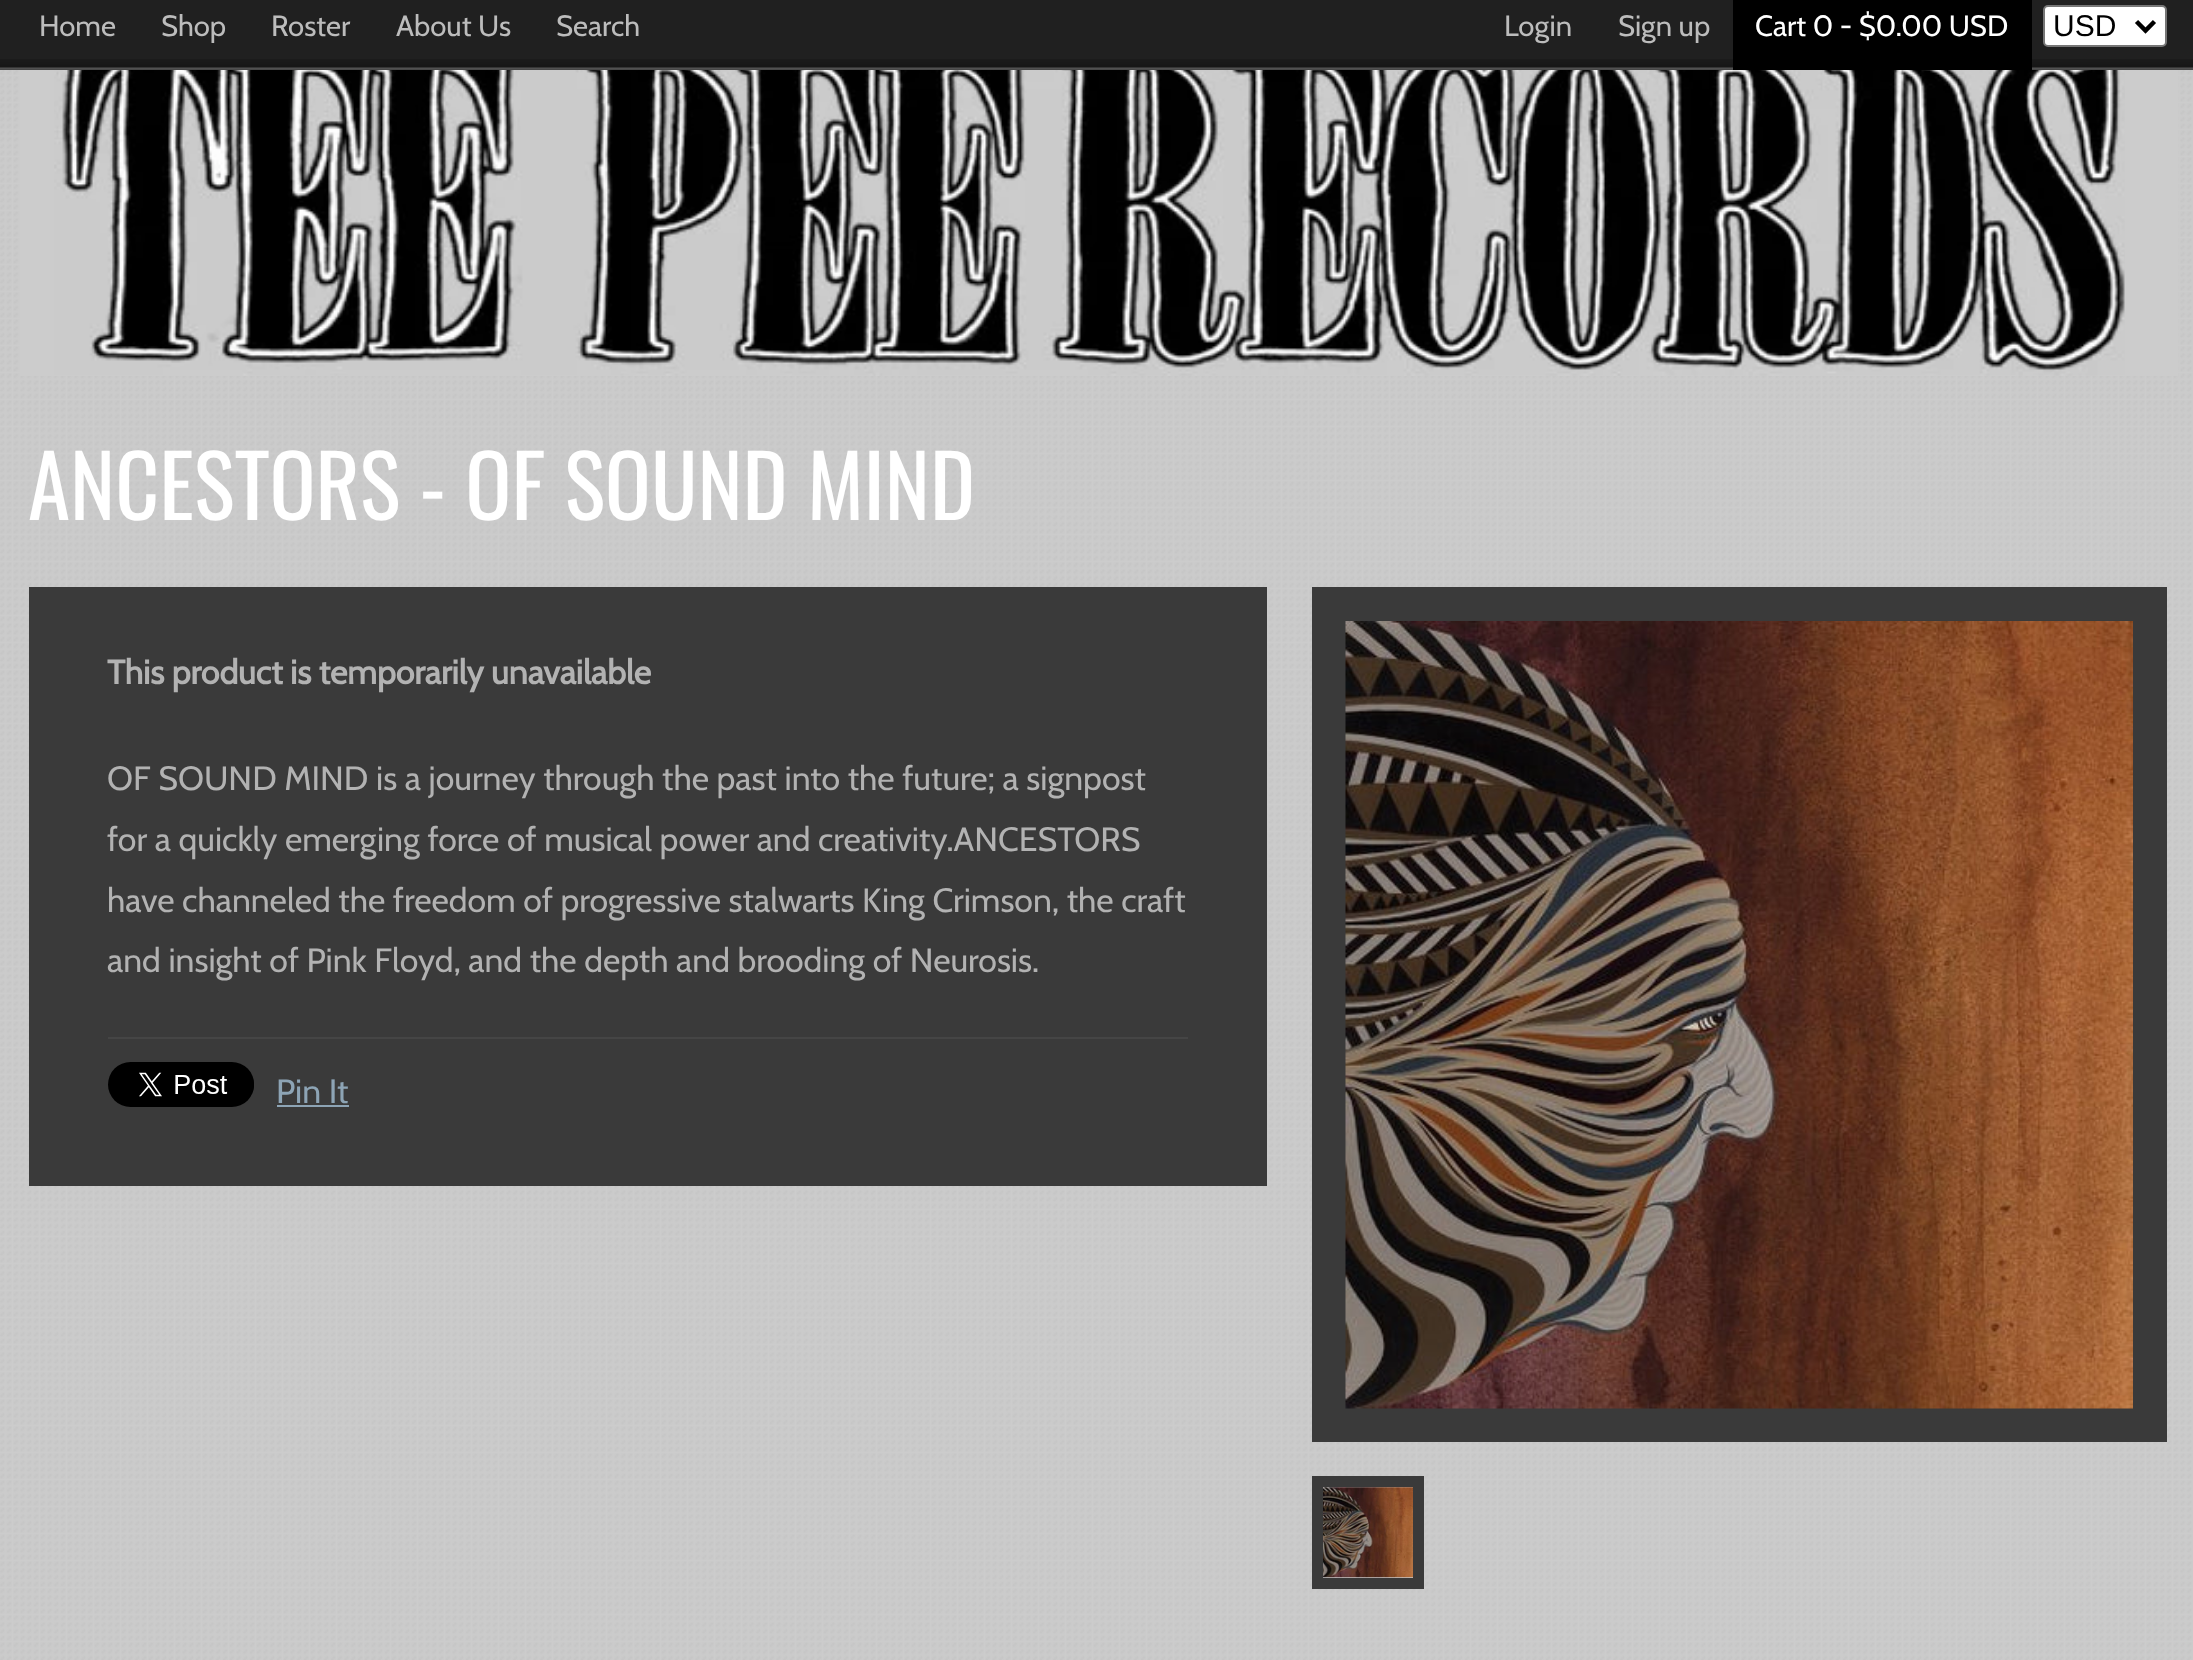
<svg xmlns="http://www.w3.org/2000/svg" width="2193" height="1660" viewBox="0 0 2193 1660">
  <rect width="100%" height="100%" fill="rgb(255,255,255)"/>
  <image x="0" y="70" width="2193" height="1590" href="pic1.png"/>
  <rect x="0" y="0" width="2193" height="70" fill="rgb(32,32,32)"/>
  <image x="0" y="59" width="2193" height="11" href="pic2.png"/>
  <g font-family="Cabin" font-size="29.25" fill="rgb(188,188,188)">
    <text x="39" y="36">Home</text>
    <text x="161" y="36">Shop</text>
    <text x="271" y="36">Roster</text>
    <text x="396" y="36">About Us</text>
    <text x="556" y="36">Search</text>
    <text x="1504" y="36">Login</text>
    <text x="1618" y="36">Sign up</text>
  </g>
  <rect x="1733" y="0" width="299" height="70" fill="rgb(0,0,0)"/>
  <text x="1755" y="36" font-family="Cabin" font-size="29.25" fill="rgb(255,255,255)">Cart 0 - $0.00 USD</text>
  <rect x="2044" y="6" width="122" height="40" rx="4" fill="rgb(255,255,255)" stroke="rgb(118,118,118)" stroke-width="2"/>
  <path d="M2136.5 21.5L2145.5 30.5L2154.5 21.5" fill="none" stroke="rgb(0,0,0)" stroke-width="4.5"/>
  <text x="2053" y="36" font-family="Liberation Sans" font-size="30" fill="rgb(0,0,0)">USD</text>
  <rect x="20" y="70" width="2158" height="306" fill="rgb(204,204,204)"/>
  <image x="54" y="70" width="2071" height="306" href="pic3.png"/>
  <text x="28" y="520" font-family="Oswald" font-size="85.5" fill="rgb(255,255,255)">ANCESTORS - OF SOUND MIND</text>
  <rect x="29" y="587" width="1238" height="599" fill="rgb(58,58,58)"/>
  <text x="107" y="684" font-family="Cabin" font-size="33.75" font-weight="bold" fill="rgb(178,178,178)">This product is temporarily unavailable</text>
  <g font-family="Cabin" font-size="33.75" fill="rgb(178,178,178)">
    <text>
      <tspan x="107" y="790">OF SOUND MIND is a journey through the past into the future; a signpost</tspan>
      <tspan x="107" y="851">for a quickly emerging force of musical power and creativity.ANCESTORS</tspan>
      <tspan x="107" y="912">have channeled the freedom of progressive stalwarts King Crimson, the craft</tspan>
      <tspan x="107" y="972">and insight of Pink Floyd, and the depth and brooding of Neurosis.</tspan>
    </text>
  </g>
  <rect x="108" y="1037" width="1080" height="2" fill="rgb(69,69,69)"/>
  <image x="108" y="1062" width="146" height="45" href="pic4.png"/>
  <text x="276" y="1103" font-family="Cabin" font-size="33.75" fill="rgb(141,164,181)">Pin It</text>
  <rect x="277" y="1105" width="72" height="2" fill="rgb(141,164,181)"/>
  <rect x="1329" y="604" width="821" height="821" fill="none" stroke="rgb(58,58,58)" stroke-width="34"/>
  <image x="1345" y="621" width="788" height="788" href="pic5.png"/>
  <rect x="1317.5" y="1481.5" width="101" height="102" fill="none" stroke="rgb(58,58,58)" stroke-width="11"/>
  <image x="1323" y="1487" width="90" height="91" href="pic6.png"/>
</svg>
